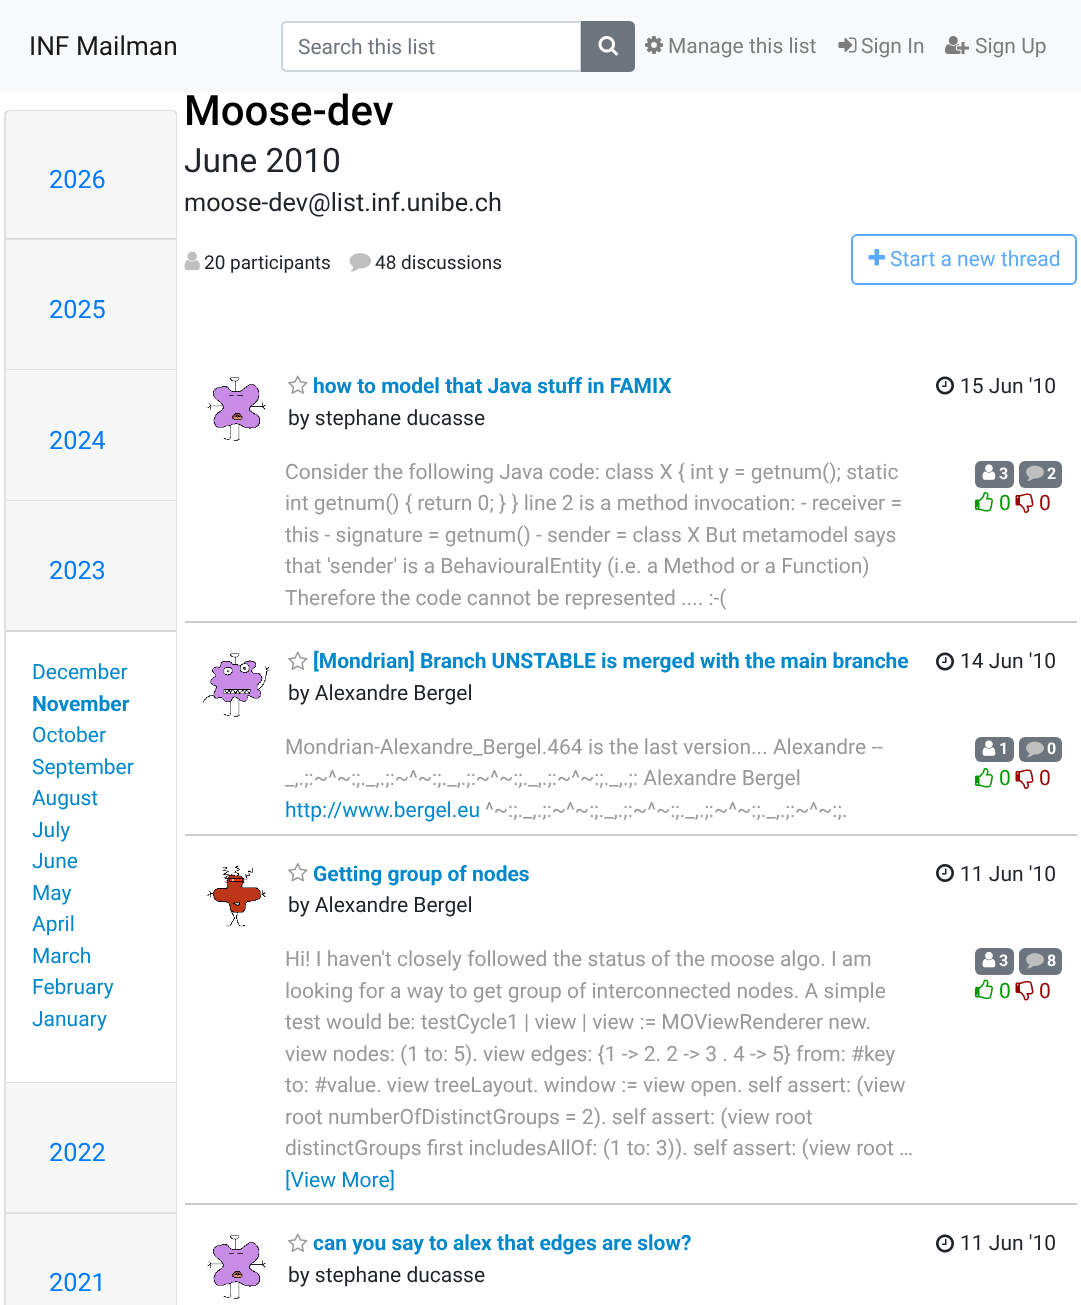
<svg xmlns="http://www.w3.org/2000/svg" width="1081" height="1305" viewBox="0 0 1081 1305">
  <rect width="100%" height="100%" fill="rgb(255,255,255)"/>
  <rect x="0" y="0" width="1081" height="93" fill="rgb(248,249,250)"/>
  <text x="29" y="55" font-family="Roboto" font-size="26.25" fill="rgb(25,25,25)">INF Mailman</text>
  <path d="M287 22H581V71H287C284 71 282 69 282 66V27C282 24 284 22 287 22Z" fill="rgb(255,255,255)" stroke="rgb(206,212,218)" stroke-width="2"/>
  <text x="298" y="54" font-family="Roboto" font-size="21" fill="rgb(108,117,125)">Search this list</text>
  <path d="M582 22H629C632 22 634 24 634 27V66C634 69 632 71 629 71H582Z" fill="rgb(108,117,125)" stroke="rgb(108,117,125)" stroke-width="2"/>
  <image x="598" y="36" width="20" height="20" href="pic1.png"/>
  <image x="645" y="36" width="18" height="18" href="pic2.png"/>
  <text x="668" y="53" font-family="Roboto" font-size="21" fill="rgb(124,125,125)">Manage this list</text>
  <image x="838" y="37" width="19" height="16" href="pic3.png"/>
  <text x="861" y="53" font-family="Roboto" font-size="21" fill="rgb(124,125,125)">Sign In</text>
  <image x="945" y="36" width="24" height="18" href="pic4.png"/>
  <text x="975" y="53" font-family="Roboto" font-size="21" fill="rgb(124,125,125)">Sign Up</text>
  <path d="M10 110H172C175 110 177 112 177 115V238H4V115C4 112 7 110 10 110ZM10 111H172C174 111 176 113 176 115V238H6V115C6 113 8 111 10 111Z" fill="rgb(223,223,223)" fill-rule="evenodd"/>
  <rect x="6" y="111" width="170" height="128" fill="rgba(0,0,0,0.03)"/>
  <text x="49" y="188" font-family="Roboto" font-size="25.25" fill="rgb(0,123,255)">2026</text>
  <path d="M4 238H177L176 240H6Z" fill="rgba(0,0,0,0.12)"/>
  <path d="M177 238V369H176V240Z" fill="rgba(0,0,0,0.12)"/>
  <path d="M4 369V238L6 240V369Z" fill="rgba(0,0,0,0.12)"/>
  <rect x="6" y="240" width="170" height="129" fill="rgb(247,247,247)"/>
  <text x="49" y="318" font-family="Roboto" font-size="25.25" fill="rgb(0,123,255)">2025</text>
  <path d="M4 369H177L176 370H6Z" fill="rgb(223,223,223)"/>
  <path d="M177 369V500H176V370Z" fill="rgba(0,0,0,0.12)"/>
  <path d="M4 500V369L6 370V500Z" fill="rgba(0,0,0,0.12)"/>
  <rect x="6" y="371" width="170" height="129" fill="rgb(247,247,247)"/>
  <text x="49" y="449" font-family="Roboto" font-size="25.25" fill="rgb(0,123,255)">2024</text>
  <path d="M4 500H177L176 501H6Z" fill="rgb(223,223,223)"/>
  <path d="M177 500V1082H176V501Z" fill="rgba(0,0,0,0.12)"/>
  <path d="M4 1082V500L6 501V1082Z" fill="rgba(0,0,0,0.12)"/>
  <rect x="6" y="501" width="170" height="129" fill="rgb(247,247,247)"/>
  <rect x="6" y="630" width="170" height="2" fill="rgb(216,216,216)"/>
  <text x="49" y="579" font-family="Roboto" font-size="25.25" fill="rgb(0,123,255)">2023</text>
  <text x="32" y="679" font-family="Roboto" font-size="21" fill="rgb(0,136,204)">December</text>
  <text x="32" y="711" font-family="Roboto" font-size="21" font-weight="bold" fill="rgb(0,136,204)">November</text>
  <g font-family="Roboto" font-size="21" fill="rgb(0,136,204)">
    <text>
      <tspan x="32" y="742">October</tspan>
      <tspan x="32" y="774">September</tspan>
      <tspan x="32" y="805">August</tspan>
      <tspan x="32" y="837">July</tspan>
      <tspan x="32" y="868">June</tspan>
      <tspan x="32" y="900">May</tspan>
      <tspan x="32" y="931">April</tspan>
      <tspan x="32" y="963">March</tspan>
      <tspan x="32" y="994">February</tspan>
      <tspan x="32" y="1026">January</tspan>
    </text>
  </g>
  <path d="M4 1082H177L176 1083H6Z" fill="rgb(223,223,223)"/>
  <path d="M177 1082V1212H176V1083Z" fill="rgba(0,0,0,0.12)"/>
  <path d="M4 1212V1082L6 1083V1212Z" fill="rgba(0,0,0,0.12)"/>
  <rect x="6" y="1083" width="170" height="129" fill="rgb(247,247,247)"/>
  <text x="49" y="1161" font-family="Roboto" font-size="25.25" fill="rgb(0,123,255)">2022</text>
  <path d="M4 1212H177L176 1214H6Z" fill="rgb(223,223,223)"/>
  <path d="M177 1212V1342H176V1214Z" fill="rgba(0,0,0,0.12)"/>
  <path d="M4 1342V1212L6 1214V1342Z" fill="rgba(0,0,0,0.12)"/>
  <rect x="6" y="1214" width="170" height="91" fill="rgb(247,247,247)"/>
  <text x="49" y="1291" font-family="Roboto" font-size="25.25" fill="rgb(0,123,255)">2021</text>
  <text x="184" y="125" font-family="Roboto" font-size="42" font-weight="500" fill="rgb(0,0,0)">Moose-dev</text>
  <text x="184" y="172" font-family="Roboto" font-size="33.5" fill="rgb(33,37,41)">June 2010</text>
  <text x="184" y="211" font-family="Roboto" font-size="25.25" fill="rgb(33,37,41)">moose-dev@list.inf.unibe.ch</text>
  <image x="184" y="251" width="16" height="20" href="pic5.png"/>
  <text x="204" y="269" font-family="Roboto" font-size="19" fill="rgb(33,37,41)">20 participants</text>
  <image x="349" y="253" width="22" height="19" href="pic6.png"/>
  <text x="375" y="269" font-family="Roboto" font-size="19" fill="rgb(33,37,41)">48 discussions</text>
  <rect x="852" y="235" width="224" height="49" rx="5" fill="none" stroke="rgb(89,169,255)" stroke-width="2"/>
  <image x="868" y="249" width="17" height="17" href="pic7.png"/>
  <text x="890" y="266" font-family="Roboto" font-size="21" fill="rgb(89,169,255)">Start a new thread</text>
  <rect x="185" y="621" width="892" height="2" fill="rgb(204,204,204)"/>
  <image x="207" y="377" width="59" height="64" href="pic8.png"/>
  <image x="288" y="375" width="20" height="19" href="pic9.png"/>
  <text x="313" y="393" font-family="Roboto" font-size="21" font-weight="bold" fill="rgb(0,136,204)">how to model that Java stuff in FAMIX</text>
  <text x="288" y="425" font-family="Roboto" font-size="21" fill="rgb(33,37,41)">by stephane ducasse</text>
  <image x="936" y="376" width="18" height="19" href="pic10.png"/>
  <text x="960" y="393" font-family="Roboto" font-size="21" fill="rgb(33,37,41)">15 Jun '10</text>
  <g font-family="Roboto" font-size="21" fill="rgb(153,153,153)">
    <text>
      <tspan x="285" y="479">Consider the following Java code: class X { int y = getnum(); static</tspan>
      <tspan x="285" y="510">int getnum() { return 0; } } line 2 is a method invocation: - receiver =</tspan>
      <tspan x="285" y="542">this - signature = getnum() - sender = class X But metamodel says</tspan>
      <tspan x="285" y="573">that 'sender' is a BehaviouralEntity (i.e. a Method or a Function)</tspan>
      <tspan x="285" y="605">Therefore the code cannot be represented .... :-(</tspan>
    </text>
  </g>
  <rect x="975" y="461" width="39" height="27" rx="6" fill="rgb(108,117,125)"/>
  <image x="982" y="464" width="14" height="16" href="pic11.png"/>
  <text x="999" y="479" font-family="Roboto" font-size="16" font-weight="bold" fill="rgb(255,255,255)">3</text>
  <rect x="1019" y="461" width="43" height="27" rx="6" fill="rgb(108,117,125)"/>
  <image x="1026" y="465" width="18" height="16" href="pic12.png"/>
  <text x="1047" y="479" font-family="Roboto" font-size="16" font-weight="bold" fill="rgb(255,255,255)">2</text>
  <image x="975" y="492" width="18" height="20" href="pic13.png"/>
  <text x="999" y="510" font-family="Roboto" font-size="21" fill="rgb(0,153,0)">0</text>
  <image x="1015" y="493" width="19" height="20" href="pic14.png"/>
  <text x="1039" y="510" font-family="Roboto" font-size="21" fill="rgb(153,0,0)">0</text>
  <rect x="185" y="834" width="892" height="2" fill="rgb(204,204,204)"/>
  <image x="203" y="653" width="68" height="64" href="pic15.png"/>
  <image x="288" y="651" width="20" height="19" href="pic9.png"/>
  <text x="313" y="668" font-family="Roboto" font-size="21" font-weight="bold" fill="rgb(0,136,204)">[Mondrian] Branch UNSTABLE is merged with the main branche</text>
  <text x="288" y="700" font-family="Roboto" font-size="21" fill="rgb(33,37,41)">by Alexandre Bergel</text>
  <image x="936" y="652" width="18" height="19" href="pic10.png"/>
  <text x="960" y="668" font-family="Roboto" font-size="21" fill="rgb(33,37,41)">14 Jun '10</text>
  <g font-family="Roboto" font-size="21" fill="rgb(153,153,153)">
    <text>
      <tspan x="285" y="754">Mondrian-Alexandre_Bergel.464 is the last version... Alexandre --</tspan>
      <tspan x="285" y="785">_,.;:~^~:;._,.;:~^~:;._,.;:~^~:;._,.;:~^~:;._,.;: Alexandre Bergel</tspan>
    </text>
  </g>
  <text x="285" y="817" font-family="Roboto" font-size="21" fill="rgb(0,136,204)">http://www.bergel.eu</text>
  <text x="485" y="817" font-family="Roboto" font-size="21" fill="rgb(153,153,153)">^~:;._,.;:~^~:;._,.;:~^~:;._,.;:~^~:;._,.;:~^~:;.</text>
  <rect x="975" y="737" width="39" height="25" rx="6" fill="rgb(108,117,125)"/>
  <image x="982" y="740" width="14" height="16" href="pic11.png"/>
  <text x="999" y="754" font-family="Roboto" font-size="16" font-weight="bold" fill="rgb(255,255,255)">1</text>
  <rect x="1019" y="737" width="43" height="25" rx="6" fill="rgb(108,117,125)"/>
  <image x="1026" y="741" width="18" height="16" href="pic12.png"/>
  <text x="1047" y="754" font-family="Roboto" font-size="16" font-weight="bold" fill="rgb(255,255,255)">0</text>
  <image x="975" y="768" width="18" height="20" href="pic13.png"/>
  <text x="999" y="785" font-family="Roboto" font-size="21" fill="rgb(0,153,0)">0</text>
  <image x="1015" y="769" width="19" height="20" href="pic14.png"/>
  <text x="1039" y="785" font-family="Roboto" font-size="21" fill="rgb(153,0,0)">0</text>
  <rect x="185" y="1203" width="892" height="2" fill="rgb(204,204,204)"/>
  <image x="207" y="865" width="59" height="62" href="pic16.png"/>
  <image x="288" y="862" width="20" height="20" href="pic17.png"/>
  <text x="313" y="881" font-family="Roboto" font-size="21" font-weight="bold" fill="rgb(0,136,204)">Getting group of nodes</text>
  <text x="288" y="912" font-family="Roboto" font-size="21" fill="rgb(33,37,41)">by Alexandre Bergel</text>
  <image x="936" y="864" width="18" height="18" href="pic18.png"/>
  <text x="960" y="881" font-family="Roboto" font-size="21" fill="rgb(33,37,41)">11 Jun '10</text>
  <g font-family="Roboto" font-size="21" fill="rgb(153,153,153)">
    <text>
      <tspan x="285" y="966">Hi! I haven't closely followed the status of the moose algo. I am</tspan>
      <tspan x="285" y="998">looking for a way to get group of interconnected nodes. A simple</tspan>
      <tspan x="285" y="1029">test would be: testCycle1 | view | view := MOViewRenderer new.</tspan>
      <tspan x="285" y="1061">view nodes: (1 to: 5). view edges: {1 -&gt; 2. 2 -&gt; 3 . 4 -&gt; 5} from: #key</tspan>
      <tspan x="285" y="1092">to: #value. view treeLayout. window := view open. self assert: (view</tspan>
      <tspan x="285" y="1124">root numberOfDistinctGroups = 2). self assert: (view root</tspan>
      <tspan x="285" y="1155">distinctGroups first includesAllOf: (1 to: 3)). self assert: (view root …</tspan>
    </text>
  </g>
  <text x="285" y="1187" font-family="Roboto" font-size="21" fill="rgb(0,136,204)">[View More]</text>
  <rect x="975" y="948" width="39" height="27" rx="6" fill="rgb(108,117,125)"/>
  <image x="982" y="951" width="14" height="17" href="pic19.png"/>
  <text x="999" y="966" font-family="Roboto" font-size="16" font-weight="bold" fill="rgb(255,255,255)">3</text>
  <rect x="1019" y="948" width="43" height="27" rx="6" fill="rgb(108,117,125)"/>
  <image x="1026" y="953" width="18" height="16" href="pic20.png"/>
  <text x="1047" y="966" font-family="Roboto" font-size="16" font-weight="bold" fill="rgb(255,255,255)">8</text>
  <image x="975" y="979" width="18" height="20" href="pic21.png"/>
  <text x="999" y="998" font-family="Roboto" font-size="21" fill="rgb(0,153,0)">0</text>
  <image x="1015" y="981" width="19" height="20" href="pic22.png"/>
  <text x="1039" y="998" font-family="Roboto" font-size="21" fill="rgb(153,0,0)">0</text>
  <image x="207" y="1235" width="59" height="64" href="pic23.png"/>
  <image x="288" y="1233" width="20" height="19" href="pic9.png"/>
  <text x="313" y="1250" font-family="Roboto" font-size="21" font-weight="bold" fill="rgb(0,136,204)">can you say to alex that edges are slow?</text>
  <text x="288" y="1282" font-family="Roboto" font-size="21" fill="rgb(33,37,41)">by stephane ducasse</text>
  <image x="936" y="1234" width="18" height="19" href="pic10.png"/>
  <text x="960" y="1250" font-family="Roboto" font-size="21" fill="rgb(33,37,41)">11 Jun '10</text>
</svg>
